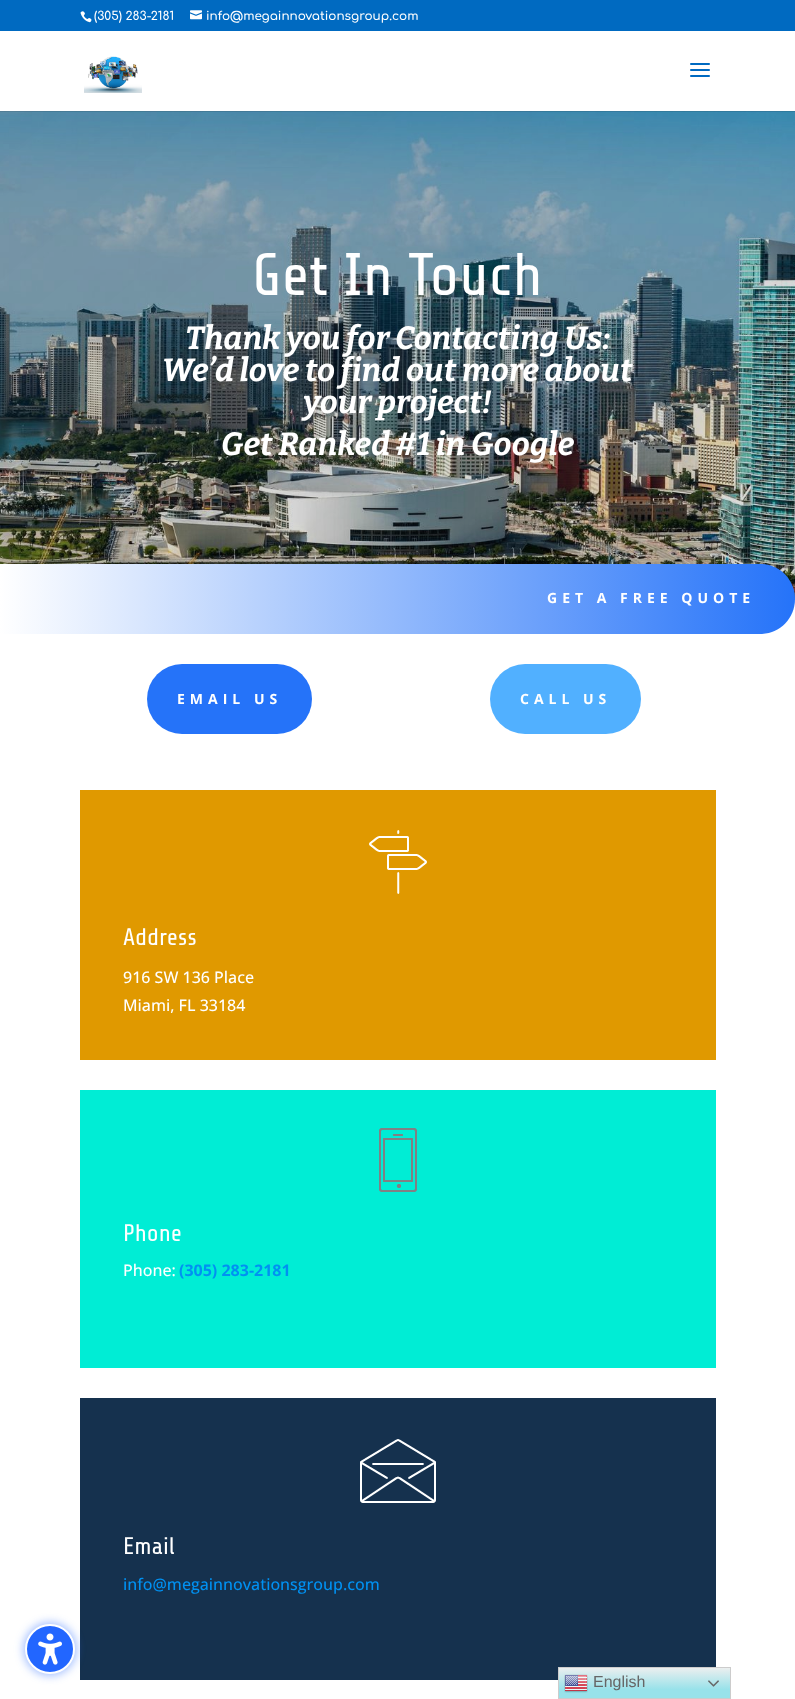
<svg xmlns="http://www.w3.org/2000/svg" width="795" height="1699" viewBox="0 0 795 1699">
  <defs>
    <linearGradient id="g1" gradientUnits="userSpaceOnUse" x1="0" y1="599" x2="795" y2="599"><stop offset="0" stop-color="rgb(255,255,255)"/><stop offset="1" stop-color="rgb(37,115,249)"/></linearGradient>
    <linearGradient id="g2" gradientUnits="userSpaceOnUse" x1="645" y1="1667" x2="645" y2="1699"><stop offset="0" stop-color="rgb(239,239,239)"/><stop offset="0.7" stop-color="rgb(152,226,234)"/></linearGradient>
  </defs>
  <rect width="100%" height="100%" fill="rgb(255,255,255)"/>
  <rect x="0" y="0" width="795" height="31" fill="rgb(0,106,193)"/>
  <image x="80" y="11" width="12" height="12" href="pic1.png"/>
  <text x="94" y="20" font-family="Comfortaa" font-size="12" font-weight="600" fill="rgb(255,255,255)">(305) 283-2181</text>
  <image x="190" y="10" width="12" height="10" href="pic2.png"/>
  <text x="206" y="20" font-family="Comfortaa" font-size="12" font-weight="600" fill="rgb(255,255,255)">info@megainnovationsgroup.com</text>
  <image x="0" y="111" width="795" height="489" href="pic5.png"/>
  <rect x="0" y="111" width="795" height="1" fill="rgba(0,0,0,0.1)"/>
  <image x="84" y="56" width="58" height="37" href="pic3.png"/>
  <image x="690" y="63" width="20" height="14" href="pic4.png"/>
  <text x="252" y="295" font-family="Share Tech" font-size="60" fill="rgb(255,255,255)">Get In Touch</text>
  <g font-family="Bitter" font-size="32" font-weight="bold" font-style="italic" fill="rgb(255,255,255)">
    <text x="185" y="349">Thank you for Contacting Us:</text>
    <text x="162" y="381">We’d love to find out more about</text>
    <text x="303" y="413">your project!</text>
    <text x="221" y="455">Get Ranked #1 in Google</text>
  </g>
  <path d="M0 564H760C779.5 564 795 579.5 795 599C795 618.5 779.5 634 760 634H0Z" fill="url(#g1)"/>
  <text x="547" y="603" font-family="Open Sans" font-size="14" font-weight="bold" letter-spacing="5" fill="rgb(255,255,255)">GET A FREE QUOTE</text>
  <rect x="147" y="664" width="165" height="70" rx="35" fill="rgb(37,115,249)"/>
  <text x="177" y="704" font-family="Open Sans" font-size="14" font-weight="bold" letter-spacing="5" fill="rgb(255,255,255)">EMAIL US</text>
  <rect x="490" y="664" width="151" height="70" rx="35" fill="rgb(81,176,255)"/>
  <text x="520" y="704" font-family="Open Sans" font-size="14" font-weight="bold" letter-spacing="5" fill="rgb(255,255,255)">CALL US</text>
  <rect x="80" y="790" width="636" height="270" fill="rgb(224,153,0)"/>
  <image x="369" y="830" width="58" height="64" href="pic6.png"/>
  <text x="123" y="945" font-family="Share Tech" font-size="24" fill="rgb(255,255,255)">Address</text>
  <g font-family="Open Sans" font-size="16" font-weight="500" fill="rgb(255,255,255)">
    <text>
      <tspan x="123" y="983">916 SW 136 Place</tspan>
      <tspan x="123" y="1011">Miami, FL 33184</tspan>
    </text>
  </g>
  <rect x="80" y="1090" width="636" height="278" fill="rgb(0,237,213)"/>
  <image x="379" y="1128" width="38" height="64" href="pic7.png"/>
  <text x="123" y="1241" font-family="Share Tech" font-size="24" fill="rgb(255,255,255)">Phone</text>
  <text x="123" y="1276" font-family="Open Sans" font-size="16" font-weight="500" fill="rgb(255,255,255)">Phone:</text>
  <text x="179" y="1276" font-family="Open Sans" font-size="16" font-weight="bold" fill="rgb(0,145,242)">(305) 283-2181</text>
  <rect x="80" y="1398" width="636" height="282" fill="rgb(21,49,78)"/>
  <image x="360" y="1439" width="76" height="64" href="pic8.png"/>
  <text x="123" y="1554" font-family="Share Tech" font-size="24" fill="rgb(255,255,255)">Email</text>
  <text x="123" y="1590" font-family="Open Sans" font-size="16" font-weight="500" fill="rgb(0,145,242)">info@megainnovationsgroup.com</text>
  <rect x="23" y="1622" width="54" height="54" rx="27" fill="rgba(34,102,255,0.4)" filter="blur(4px)"/>
  <circle cx="50" cy="1649" r="24" fill="rgb(34,102,255)" stroke="rgb(255,255,255)" stroke-width="2"/>
  <image x="38" y="1633" width="24" height="32" href="pic9.png"/>
  <rect x="559" y="1668" width="171" height="30" fill="url(#g2)"/>
  <rect x="558.5" y="1667.5" width="172" height="31" fill="none" stroke="rgb(204,204,204)"/>
  <image x="564" y="1674" width="24" height="19" href="pic10.png"/>
  <text x="593" y="1687" font-family="Liberation Sans" font-size="16" fill="rgb(102,102,102)">English</text>
  <image x="708" y="1680" width="11" height="7" href="pic11.png"/>
</svg>
